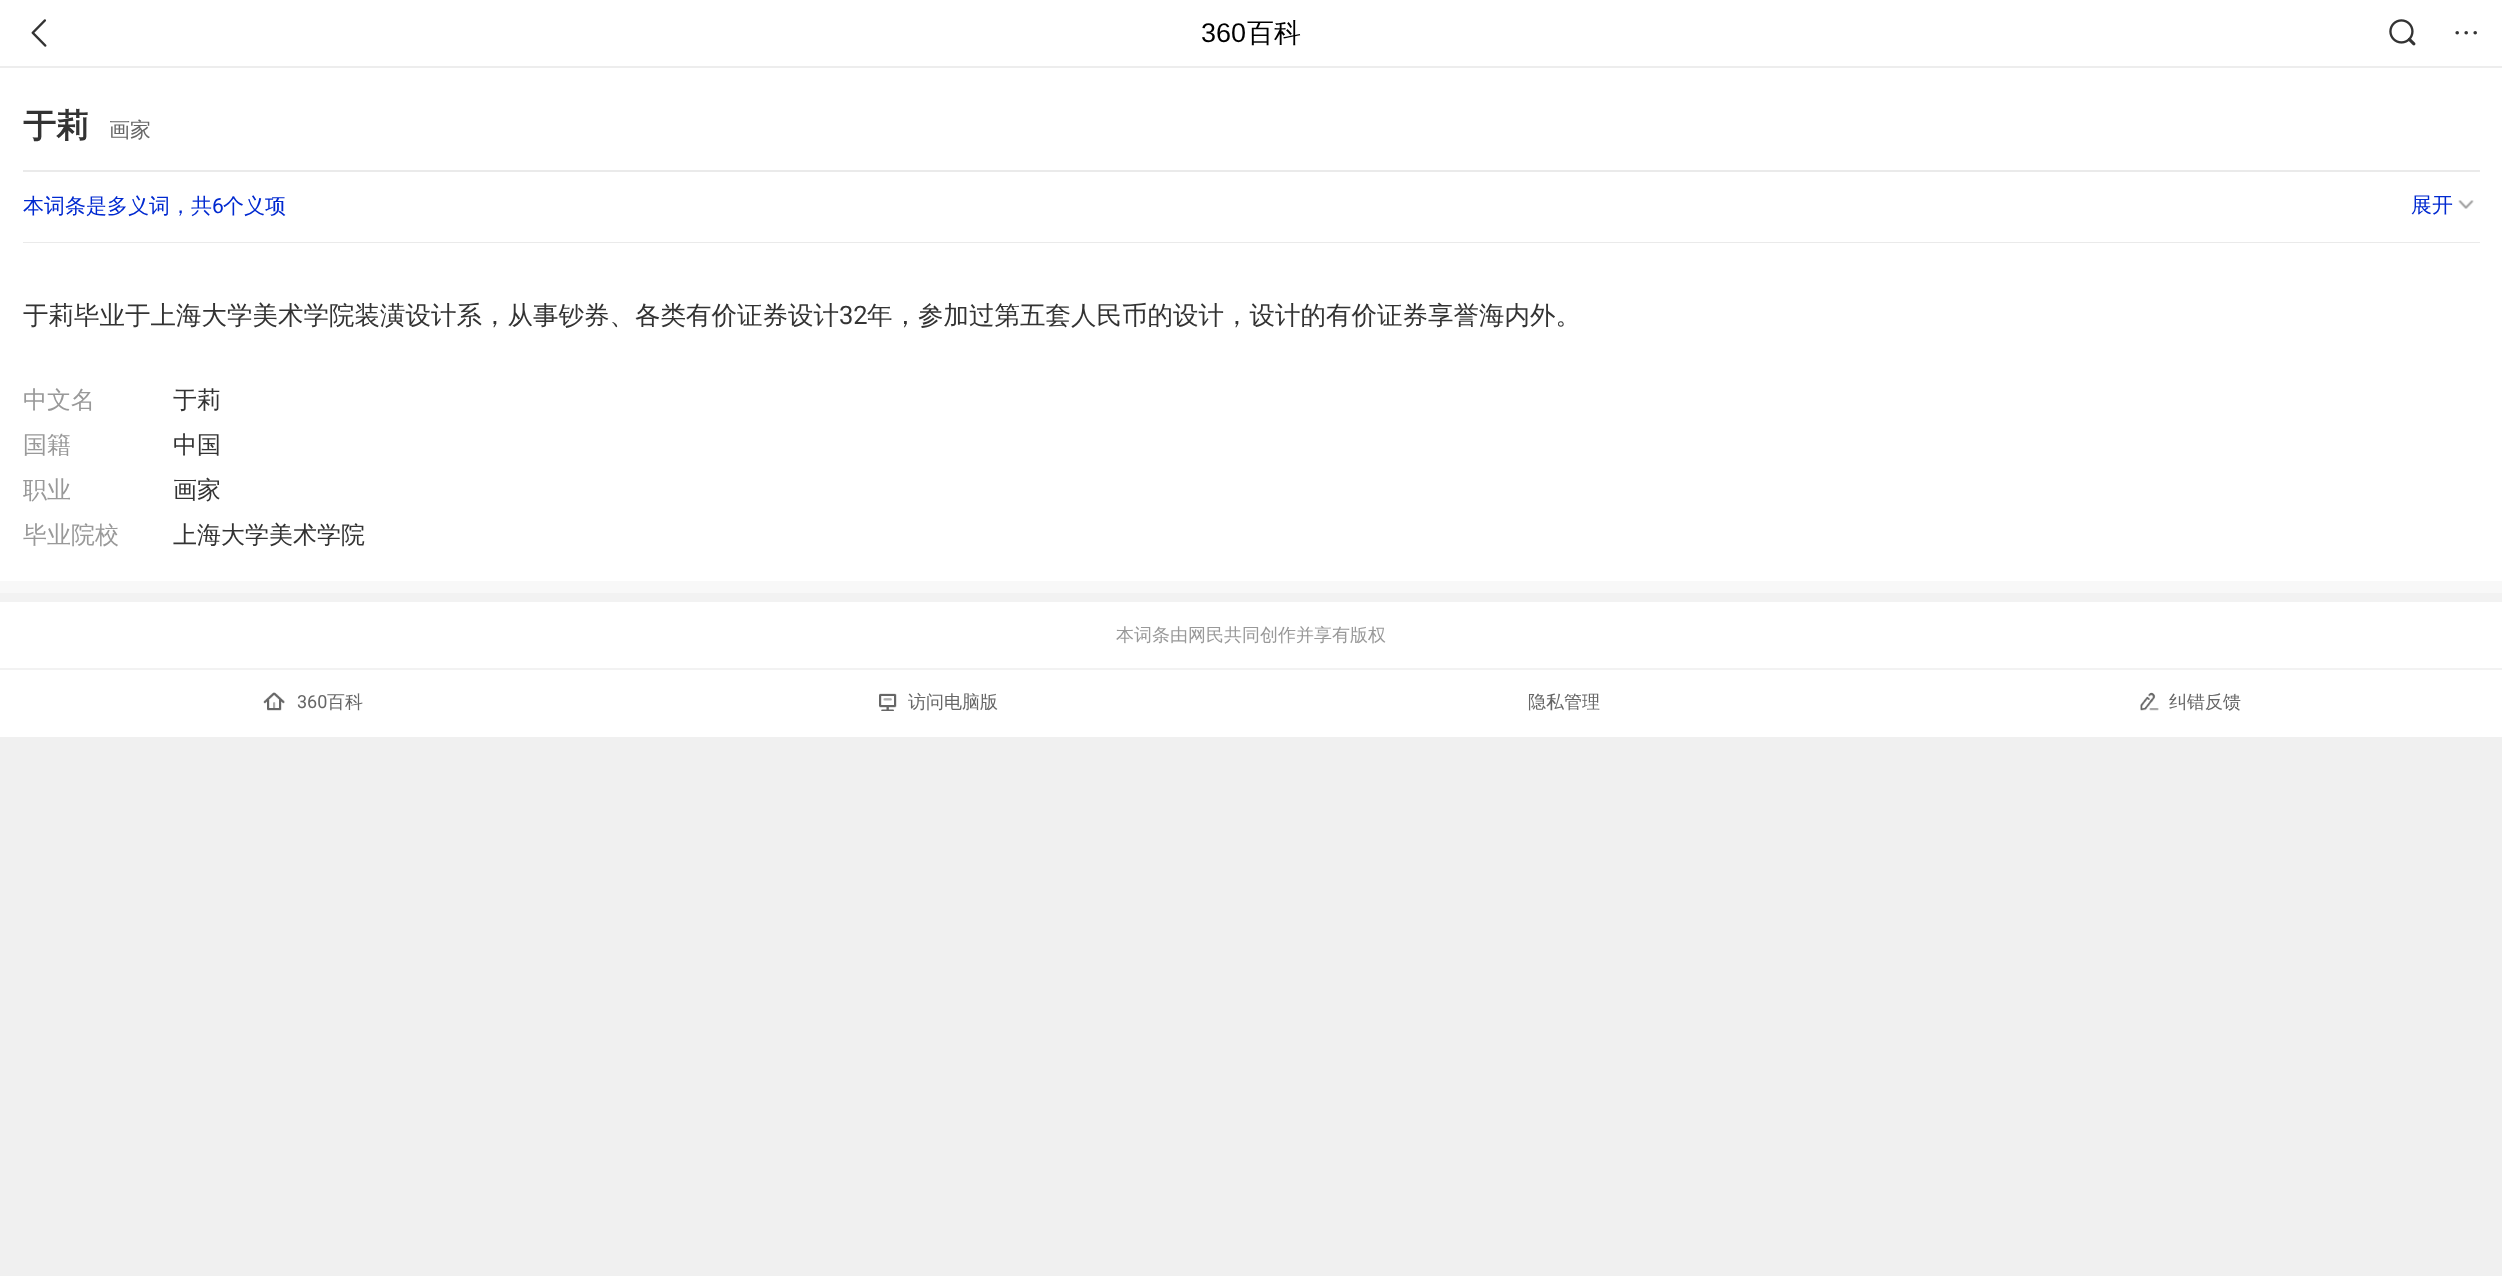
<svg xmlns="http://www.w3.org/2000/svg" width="2502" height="1276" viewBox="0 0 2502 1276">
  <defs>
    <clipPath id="clip1"><rect x="23" y="468" width="150" height="45"/></clipPath>
  </defs>
  <rect width="100%" height="100%" fill="rgb(240,240,240)"/>
  <rect x="0" y="68" width="2502" height="669" fill="rgb(255,255,255)"/>
  <rect x="0" y="0" width="2502" height="66" fill="rgb(255,255,255)"/>
  <rect x="0" y="66" width="2502" height="2" fill="rgb(237,237,237)"/>
  <image x="31" y="19" width="16" height="28" href="pic1.png"/>
  <text x="1201" y="42" font-family="Liberation Sans" font-size="27" fill="rgb(0,0,0)">360</text>
  <text x="1247" y="42" font-family="WenQuanYi Zen Hei" font-size="27" font-weight="500" fill="rgb(0,0,0)">百科</text>
  <image x="2389" y="19" width="27" height="27" href="pic2.png"/>
  <circle cx="2457.2" cy="32.8" r="1.8" fill="rgb(51,51,51)"/>
  <circle cx="2466.2" cy="32.8" r="1.8" fill="rgb(51,51,51)"/>
  <circle cx="2475.2" cy="32.8" r="1.8" fill="rgb(51,51,51)"/>
  <text x="23" y="137" font-family="WenQuanYi Zen Hei" font-size="33" font-weight="bold" fill="rgb(51,51,51)">于莉</text>
  <text x="109" y="137" font-family="WenQuanYi Zen Hei" font-size="21" font-weight="500" fill="rgb(102,102,102)">画家</text>
  <rect x="23" y="170" width="2457" height="2" fill="rgb(234,234,234)"/>
  <text x="23" y="213" font-family="WenQuanYi Zen Hei" font-size="21" font-weight="500" fill="rgb(0,41,208)">本词条是多义词，共</text>
  <text x="212" y="213" font-family="Roboto" font-size="21" fill="rgb(0,41,208)">6</text>
  <g font-family="WenQuanYi Zen Hei" font-size="21" font-weight="500" fill="rgb(0,41,208)">
    <text x="223" y="213">个义项</text>
    <text x="2411" y="212">展开</text>
  </g>
  <image x="2458" y="200" width="16" height="9" href="pic3.png"/>
  <rect x="23" y="242" width="2457" height="1" fill="rgb(234,234,234)"/>
  <text x="23" y="324" font-family="WenQuanYi Zen Hei" font-size="25.5" font-weight="500" fill="rgb(51,51,51)">于莉毕业于上海大学美术学院装潢设计系，从事钞券、各类有价证券设计</text>
  <text x="839" y="324" font-family="Roboto" font-size="25.5" fill="rgb(51,51,51)">32</text>
  <text x="867" y="324" font-family="WenQuanYi Zen Hei" font-size="25.5" font-weight="500" fill="rgb(51,51,51)">年，参加过第五套人民币的设计，设计的有价证券享誉海内外。</text>
  <rect x="0" y="581" width="2502" height="12" fill="rgb(248,248,248)"/>
  <text x="23" y="408" font-family="WenQuanYi Zen Hei" font-size="24" font-weight="500" fill="rgb(153,153,153)">中文名</text>
  <text x="173" y="408" font-family="WenQuanYi Zen Hei" font-size="24" font-weight="500" fill="rgb(51,51,51)">于莉</text>
  <text x="23" y="453" font-family="WenQuanYi Zen Hei" font-size="24" font-weight="500" fill="rgb(153,153,153)">国籍</text>
  <text x="173" y="453" font-family="WenQuanYi Zen Hei" font-size="24" font-weight="500" fill="rgb(51,51,51)">中国</text>
  <g clip-path="url(#clip1)">
    <text x="23" y="498" font-family="WenQuanYi Zen Hei" font-size="24" font-weight="500" fill="rgb(153,153,153)">职业</text>
  </g>
  <text x="173" y="498" font-family="WenQuanYi Zen Hei" font-size="24" font-weight="500" fill="rgb(51,51,51)">画家</text>
  <text x="23" y="543" font-family="WenQuanYi Zen Hei" font-size="24" font-weight="500" fill="rgb(153,153,153)">毕业院校</text>
  <text x="173" y="543" font-family="WenQuanYi Zen Hei" font-size="24" font-weight="500" fill="rgb(51,51,51)">上海大学美术学院</text>
  <rect x="0" y="593" width="2502" height="9" fill="rgb(242,242,242)"/>
  <text x="1116" y="641" font-family="WenQuanYi Zen Hei" font-size="18" font-weight="500" fill="rgb(153,153,153)">本词条由网民共同创作并享有版权</text>
  <rect x="0" y="668" width="2502" height="2" fill="rgb(242,242,242)"/>
  <image x="263" y="692" width="22" height="19" href="pic4.png"/>
  <text x="297" y="708" font-family="Roboto" font-size="18" fill="rgb(102,102,102)">360</text>
  <text x="327" y="708" font-family="WenQuanYi Zen Hei" font-size="18" font-weight="500" fill="rgb(102,102,102)">百科</text>
  <image x="879" y="693" width="18" height="18" href="pic5.png"/>
  <g font-family="WenQuanYi Zen Hei" font-size="18" font-weight="500" fill="rgb(102,102,102)">
    <text x="908" y="708">访问电脑版</text>
    <text x="1528" y="708">隐私管理</text>
  </g>
  <image x="2140" y="692" width="19" height="19" href="pic6.png"/>
  <text x="2169" y="708" font-family="WenQuanYi Zen Hei" font-size="18" font-weight="500" fill="rgb(102,102,102)">纠错反馈</text>
</svg>
